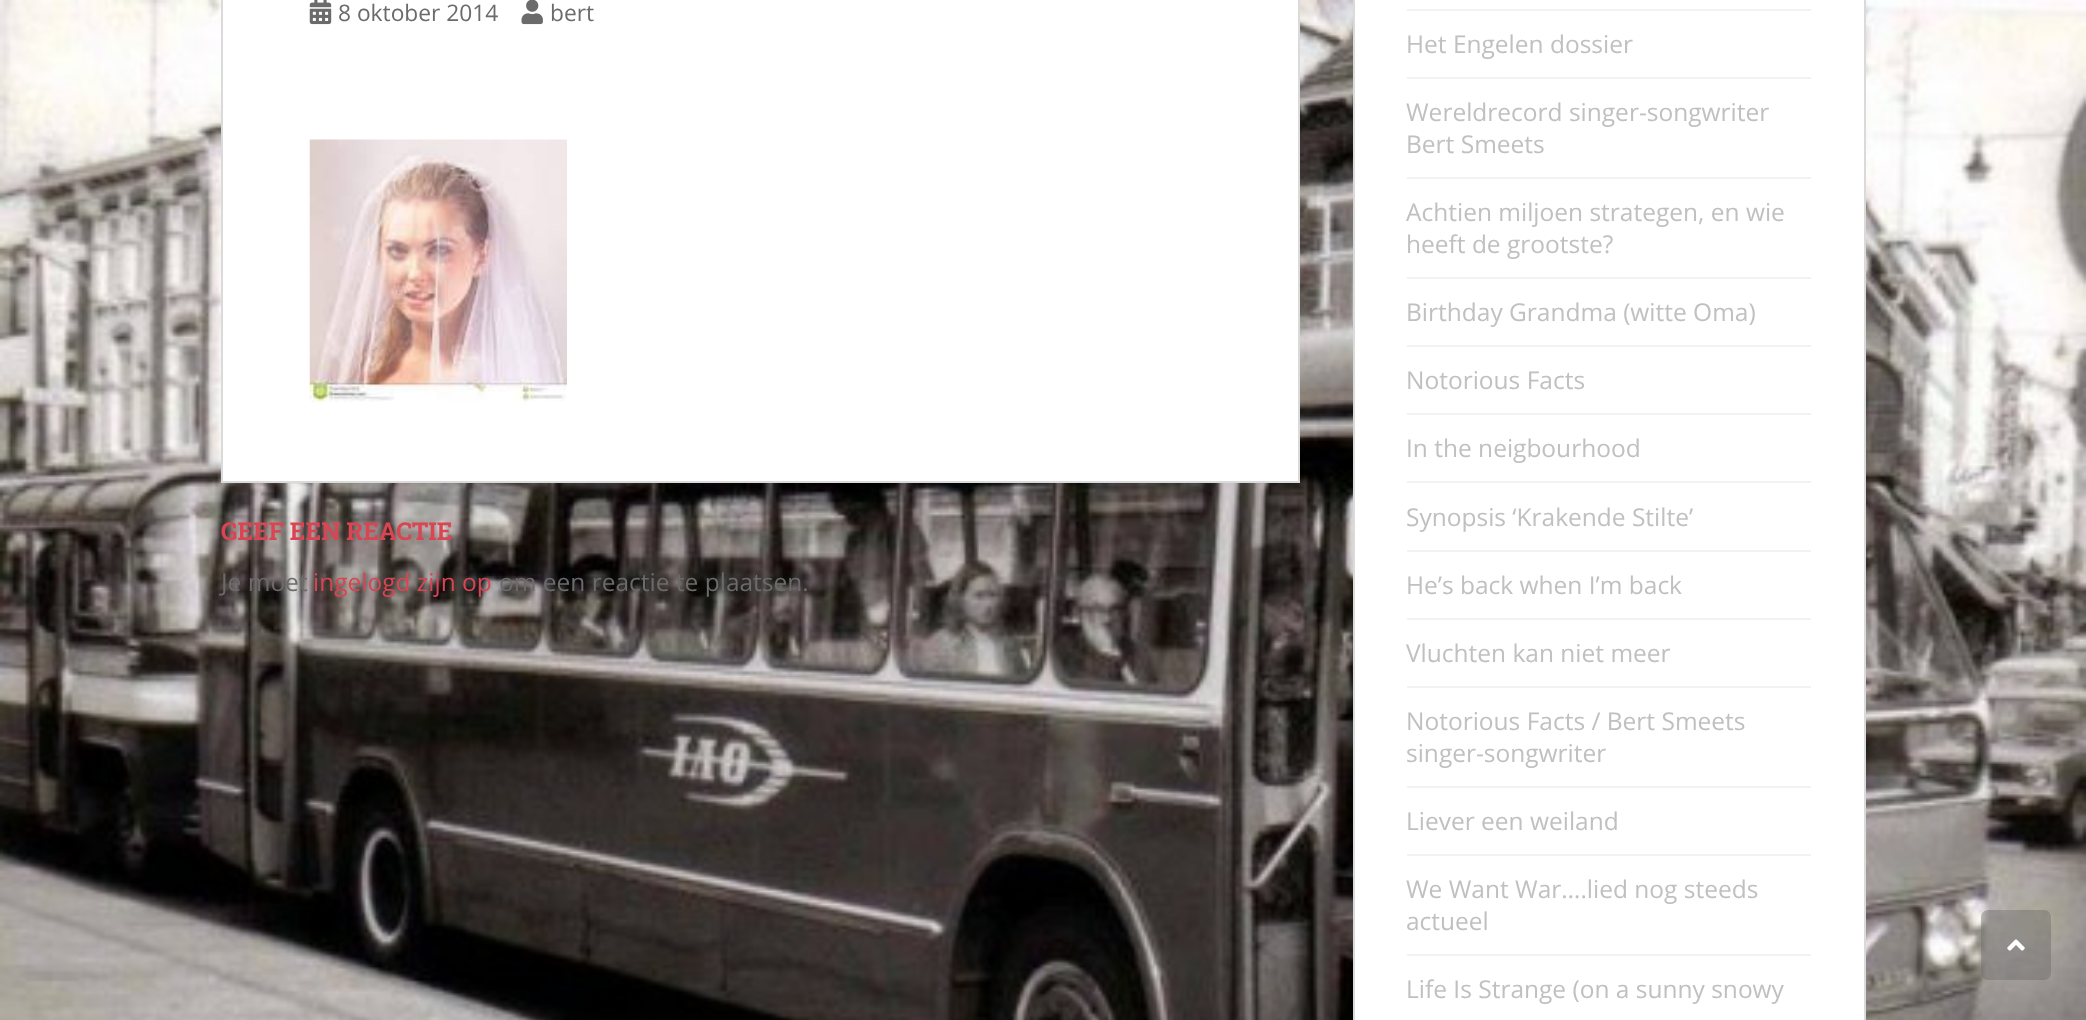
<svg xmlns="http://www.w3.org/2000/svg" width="2086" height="1020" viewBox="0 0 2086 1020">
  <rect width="100%" height="100%" fill="rgb(255,255,255)"/>
  <image x="0" y="0" width="2086" height="1020" href="pic1.png"/>
  <rect x="222" y="-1" width="1077" height="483" fill="rgb(255,255,255)" stroke="rgb(218,218,218)" stroke-width="2"/>
  <image x="309" y="0" width="23" height="25" href="pic2.png"/>
  <text x="338" y="21" font-family="Open Sans" font-size="22.75" fill="rgb(107,107,107)">8 oktober 2014</text>
  <image x="521" y="0" width="22" height="25" href="pic3.png"/>
  <text x="550" y="21" font-family="Open Sans" font-size="22.75" fill="rgb(107,107,107)">bert</text>
  <image x="309" y="139" width="258" height="263" href="pic4.png"/>
  <text x="221" y="540" font-family="Roboto Slab" font-size="24.5" font-weight="bold" fill="rgb(218,68,83)">GEEF EEN REACTIE</text>
  <text x="221" y="591" font-family="Open Sans" font-size="24.5" fill="rgb(107,107,107)">Je moet</text>
  <text x="313" y="591" font-family="Open Sans" font-size="24.5" fill="rgb(218,68,83)">ingelogd zijn op</text>
  <text x="499" y="591" font-family="Open Sans" font-size="24.5" fill="rgb(107,107,107)">om een reactie te plaatsen.</text>
  <rect x="1354" y="-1" width="511" height="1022" fill="rgb(255,255,255)" stroke="rgb(218,218,218)" stroke-width="2"/>
  <rect x="1407" y="9" width="404" height="2" fill="rgb(242,242,242)"/>
  <rect x="1407" y="77" width="404" height="2" fill="rgb(242,242,242)"/>
  <text x="1406" y="53" font-family="Open Sans" font-size="24.5" fill="rgb(193,192,192)">Het Engelen dossier</text>
  <rect x="1407" y="177" width="404" height="2" fill="rgb(242,242,242)"/>
  <g font-family="Open Sans" font-size="24.5" fill="rgb(193,192,192)">
    <text>
      <tspan x="1406" y="121">Wereldrecord singer-songwriter</tspan>
      <tspan x="1406" y="153">Bert Smeets</tspan>
    </text>
  </g>
  <rect x="1407" y="277" width="404" height="2" fill="rgb(242,242,242)"/>
  <g font-family="Open Sans" font-size="24.5" fill="rgb(193,192,192)">
    <text>
      <tspan x="1406" y="221">Achtien miljoen strategen, en wie</tspan>
      <tspan x="1406" y="253">heeft de grootste?</tspan>
    </text>
  </g>
  <rect x="1407" y="345" width="404" height="2" fill="rgb(242,242,242)"/>
  <text x="1406" y="321" font-family="Open Sans" font-size="24.5" fill="rgb(193,192,192)">Birthday Grandma (witte Oma)</text>
  <rect x="1407" y="413" width="404" height="2" fill="rgb(242,242,242)"/>
  <text x="1406" y="389" font-family="Open Sans" font-size="24.5" fill="rgb(193,192,192)">Notorious Facts</text>
  <rect x="1407" y="481" width="404" height="2" fill="rgb(242,242,242)"/>
  <text x="1406" y="457" font-family="Open Sans" font-size="24.5" fill="rgb(193,192,192)">In the neigbourhood</text>
  <rect x="1407" y="550" width="404" height="2" fill="rgb(242,242,242)"/>
  <text x="1406" y="526" font-family="Open Sans" font-size="24.5" fill="rgb(193,192,192)">Synopsis ‘Krakende Stilte’</text>
  <rect x="1407" y="618" width="404" height="2" fill="rgb(242,242,242)"/>
  <text x="1406" y="594" font-family="Open Sans" font-size="24.5" fill="rgb(193,192,192)">He’s back when I’m back</text>
  <rect x="1407" y="686" width="404" height="2" fill="rgb(242,242,242)"/>
  <text x="1406" y="662" font-family="Open Sans" font-size="24.5" fill="rgb(193,192,192)">Vluchten kan niet meer</text>
  <rect x="1407" y="786" width="404" height="2" fill="rgb(242,242,242)"/>
  <g font-family="Open Sans" font-size="24.5" fill="rgb(193,192,192)">
    <text>
      <tspan x="1406" y="730">Notorious Facts / Bert Smeets</tspan>
      <tspan x="1406" y="762">singer-songwriter</tspan>
    </text>
  </g>
  <rect x="1407" y="854" width="404" height="2" fill="rgb(242,242,242)"/>
  <text x="1406" y="830" font-family="Open Sans" font-size="24.5" fill="rgb(193,192,192)">Liever een weiland</text>
  <rect x="1407" y="954" width="404" height="2" fill="rgb(242,242,242)"/>
  <g font-family="Open Sans" font-size="24.5" fill="rgb(193,192,192)">
    <text>
      <tspan x="1406" y="898">We Want War….lied nog steeds</tspan>
      <tspan x="1406" y="930">actueel</tspan>
    </text>
    <text x="1406" y="998">Life Is Strange (on a sunny snowy</text>
  </g>
  <rect x="1981" y="910" width="70" height="70" rx="7" fill="rgba(100,100,100,0.4)"/>
  <image x="2007" y="939" width="18" height="12" href="pic5.png"/>
</svg>
